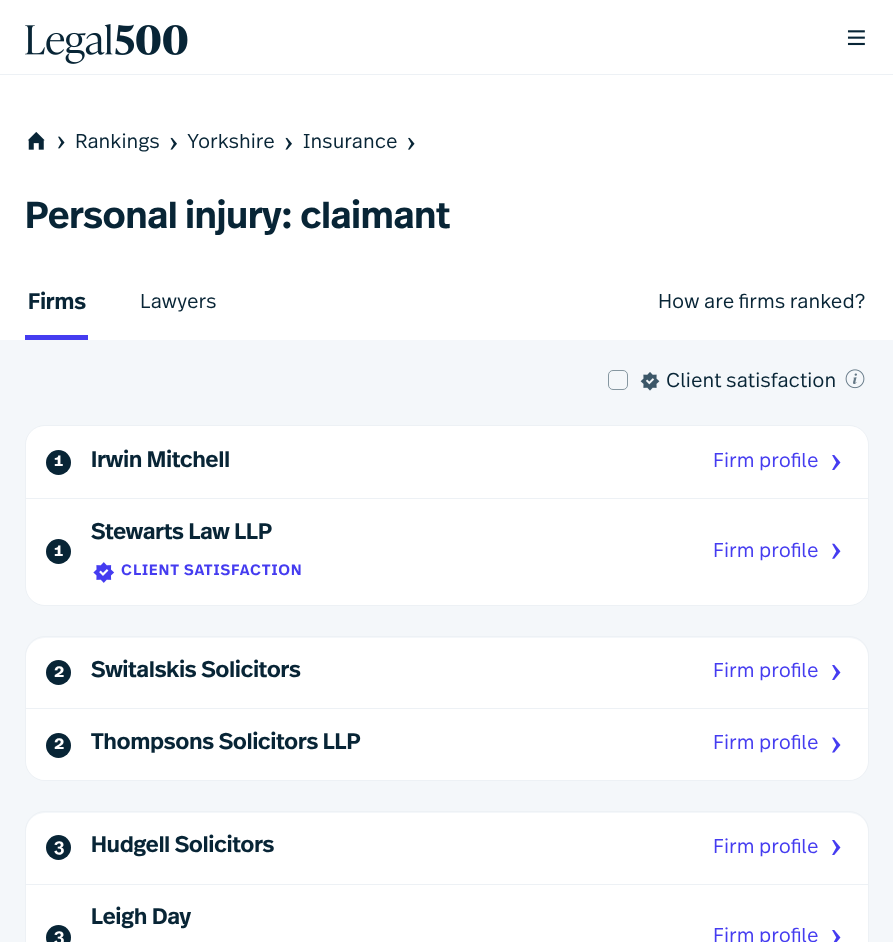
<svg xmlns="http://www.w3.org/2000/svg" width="893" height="942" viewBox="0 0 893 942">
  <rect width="100%" height="100%" fill="rgb(255,255,255)"/>
  <rect x="0" y="74" width="893" height="1" fill="rgb(237,241,245)"/>
  <image x="25" y="24" width="163" height="40" href="pic1.png"/>
  <image x="847" y="30" width="18" height="16" href="pic2.png"/>
  <rect x="0" y="340" width="893" height="602" fill="rgb(244,247,250)"/>
  <image x="27" y="132" width="18" height="18" href="pic3.png"/>
  <image x="58" y="136" width="7" height="13" href="pic4.png"/>
  <text x="75" y="148" font-family="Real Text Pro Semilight" font-size="20" font-weight="300" fill="rgb(8,37,54)">Rankings</text>
  <image x="170" y="137" width="7" height="13" href="pic5.png"/>
  <text x="187" y="148" font-family="Real Text Pro Semilight" font-size="20" font-weight="300" fill="rgb(8,37,54)">Yorkshire</text>
  <image x="285" y="137" width="7" height="13" href="pic5.png"/>
  <text x="303" y="148" font-family="Real Text Pro Semilight" font-size="20" font-weight="300" fill="rgb(8,37,54)">Insurance</text>
  <image x="408" y="137" width="7" height="13" href="pic6.png"/>
  <text x="25" y="228" font-family="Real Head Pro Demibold" font-size="37.5" font-weight="600" fill="rgb(8,37,54)">Personal injury: claimant</text>
  <text x="28" y="309" font-family="Real Head Pro Demibold" font-size="22.5" font-weight="600" fill="rgb(8,37,54)">Firms</text>
  <rect x="25" y="335" width="63" height="5" fill="rgb(69,60,240)"/>
  <g font-family="Real Text Pro Semilight" font-size="20" font-weight="300" fill="rgb(8,37,54)">
    <text x="140" y="308">Lawyers</text>
    <text x="658" y="308">How are firms ranked?</text>
  </g>
  <rect x="608.5" y="370.5" width="19" height="19" rx="4.5" fill="none" stroke="rgb(134,151,161)"/>
  <image x="640" y="372" width="20" height="19" href="pic7.png"/>
  <text x="666" y="387" font-family="Real Text Pro Semilight" font-size="20" font-weight="300" fill="rgb(8,37,54)">Client satisfaction</text>
  <image x="845" y="369" width="20" height="20" href="pic8.png"/>
  <rect x="25.5" y="425.5" width="843" height="180" rx="19.5" fill="none" stroke="rgb(237,241,245)"/>
  <path d="M45 426H849C859.5 426 868 434.5 868 445V498H26V445C26 434.5 34.5 426 45 426Z" fill="rgb(255,255,255)"/>
  <circle cx="58.5" cy="462.5" r="12.5" fill="rgb(8,37,54)"/>
  <text x="54" y="466" font-family="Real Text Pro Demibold" font-size="18" font-weight="600" fill="rgb(255,255,255)">1</text>
  <text x="91" y="467" font-family="Real Head Pro Demibold" font-size="22.5" font-weight="600" fill="rgb(8,37,54)">Irwin Mitchell</text>
  <text x="713" y="467" font-family="Real Text Pro Semilight" font-size="20" font-weight="300" fill="rgb(69,60,240)">Firm profile</text>
  <image x="832" y="455" width="9" height="15" href="pic9.png"/>
  <path d="M26 499H868V586C868 596.5 859.5 605 849 605H45C34.5 605 26 596.5 26 586Z" fill="rgb(255,255,255)"/>
  <rect x="26" y="498" width="842" height="1" fill="rgb(237,241,245)"/>
  <circle cx="58.5" cy="551.5" r="12.5" fill="rgb(8,37,54)"/>
  <text x="54" y="556" font-family="Real Text Pro Demibold" font-size="18" font-weight="600" fill="rgb(255,255,255)">1</text>
  <text x="91" y="539" font-family="Real Head Pro Demibold" font-size="22.5" font-weight="600" fill="rgb(8,37,54)">Stewarts Law LLP</text>
  <image x="93" y="562" width="22" height="21" href="pic10.png"/>
  <text x="121" y="575" font-family="Real Text Pro Demibold" font-size="15" font-weight="600" letter-spacing="0.75" fill="rgb(69,60,240)">CLIENT SATISFACTION</text>
  <text x="713" y="557" font-family="Real Text Pro Semilight" font-size="20" font-weight="300" fill="rgb(69,60,240)">Firm profile</text>
  <image x="832" y="543" width="9" height="16" href="pic11.png"/>
  <rect x="25.5" y="636.5" width="843" height="144" rx="19.5" fill="none" stroke="rgb(237,241,245)"/>
  <path d="M45 638H849C859.5 638 868 646.5 868 657V708H26V657C26 646.5 34.5 638 45 638Z" fill="rgb(255,255,255)"/>
  <circle cx="58.5" cy="672.5" r="12.5" fill="rgb(8,37,54)"/>
  <text x="54" y="677" font-family="Real Text Pro Demibold" font-size="18" font-weight="600" fill="rgb(255,255,255)">2</text>
  <text x="91" y="677" font-family="Real Head Pro Demibold" font-size="22.5" font-weight="600" fill="rgb(8,37,54)">Switalskis Solicitors</text>
  <text x="713" y="677" font-family="Real Text Pro Semilight" font-size="20" font-weight="300" fill="rgb(69,60,240)">Firm profile</text>
  <image x="832" y="665" width="9" height="15" href="pic9.png"/>
  <path d="M26 709H868V761C868 771.5 859.5 780 849 780H45C34.5 780 26 771.5 26 761Z" fill="rgb(255,255,255)"/>
  <rect x="26" y="708" width="842" height="1" fill="rgb(237,241,245)"/>
  <circle cx="58.5" cy="745.5" r="12.5" fill="rgb(8,37,54)"/>
  <text x="54" y="749" font-family="Real Text Pro Demibold" font-size="18" font-weight="600" fill="rgb(255,255,255)">2</text>
  <text x="91" y="749" font-family="Real Head Pro Demibold" font-size="22.5" font-weight="600" fill="rgb(8,37,54)">Thompsons Solicitors LLP</text>
  <text x="713" y="749" font-family="Real Text Pro Semilight" font-size="20" font-weight="300" fill="rgb(69,60,240)">Firm profile</text>
  <image x="832" y="737" width="9" height="16" href="pic12.png"/>
  <rect x="25.5" y="811.5" width="843" height="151" rx="19.5" fill="none" stroke="rgb(237,241,245)"/>
  <path d="M45 813H849C859.5 813 868 821.5 868 832V884H26V832C26 821.5 34.5 813 45 813Z" fill="rgb(255,255,255)"/>
  <circle cx="58.5" cy="847.5" r="12.5" fill="rgb(8,37,54)"/>
  <text x="54" y="852" font-family="Real Text Pro Demibold" font-size="18" font-weight="600" fill="rgb(255,255,255)">3</text>
  <text x="91" y="852" font-family="Real Head Pro Demibold" font-size="22.5" font-weight="600" fill="rgb(8,37,54)">Hudgell Solicitors</text>
  <text x="713" y="853" font-family="Real Text Pro Semilight" font-size="20" font-weight="300" fill="rgb(69,60,240)">Firm profile</text>
  <image x="832" y="840" width="9" height="15" href="pic9.png"/>
  <rect x="26" y="885" width="842" height="57" fill="rgb(255,255,255)"/>
  <rect x="26" y="884" width="842" height="1" fill="rgb(237,241,245)"/>
  <text x="91" y="924" font-family="Real Head Pro Demibold" font-size="22.5" font-weight="600" fill="rgb(8,37,54)">Leigh Day</text>
  <circle cx="58.5" cy="937.5" r="12.5" fill="rgb(8,37,54)"/>
  <text x="54" y="942" font-family="Real Text Pro Demibold" font-size="18" font-weight="600" fill="rgb(255,255,255)">3</text>
  <text x="713" y="942" font-family="Real Text Pro Semilight" font-size="20" font-weight="300" fill="rgb(69,60,240)">Firm profile</text>
  <image x="832" y="930" width="9" height="12" href="pic13.png"/>
</svg>
